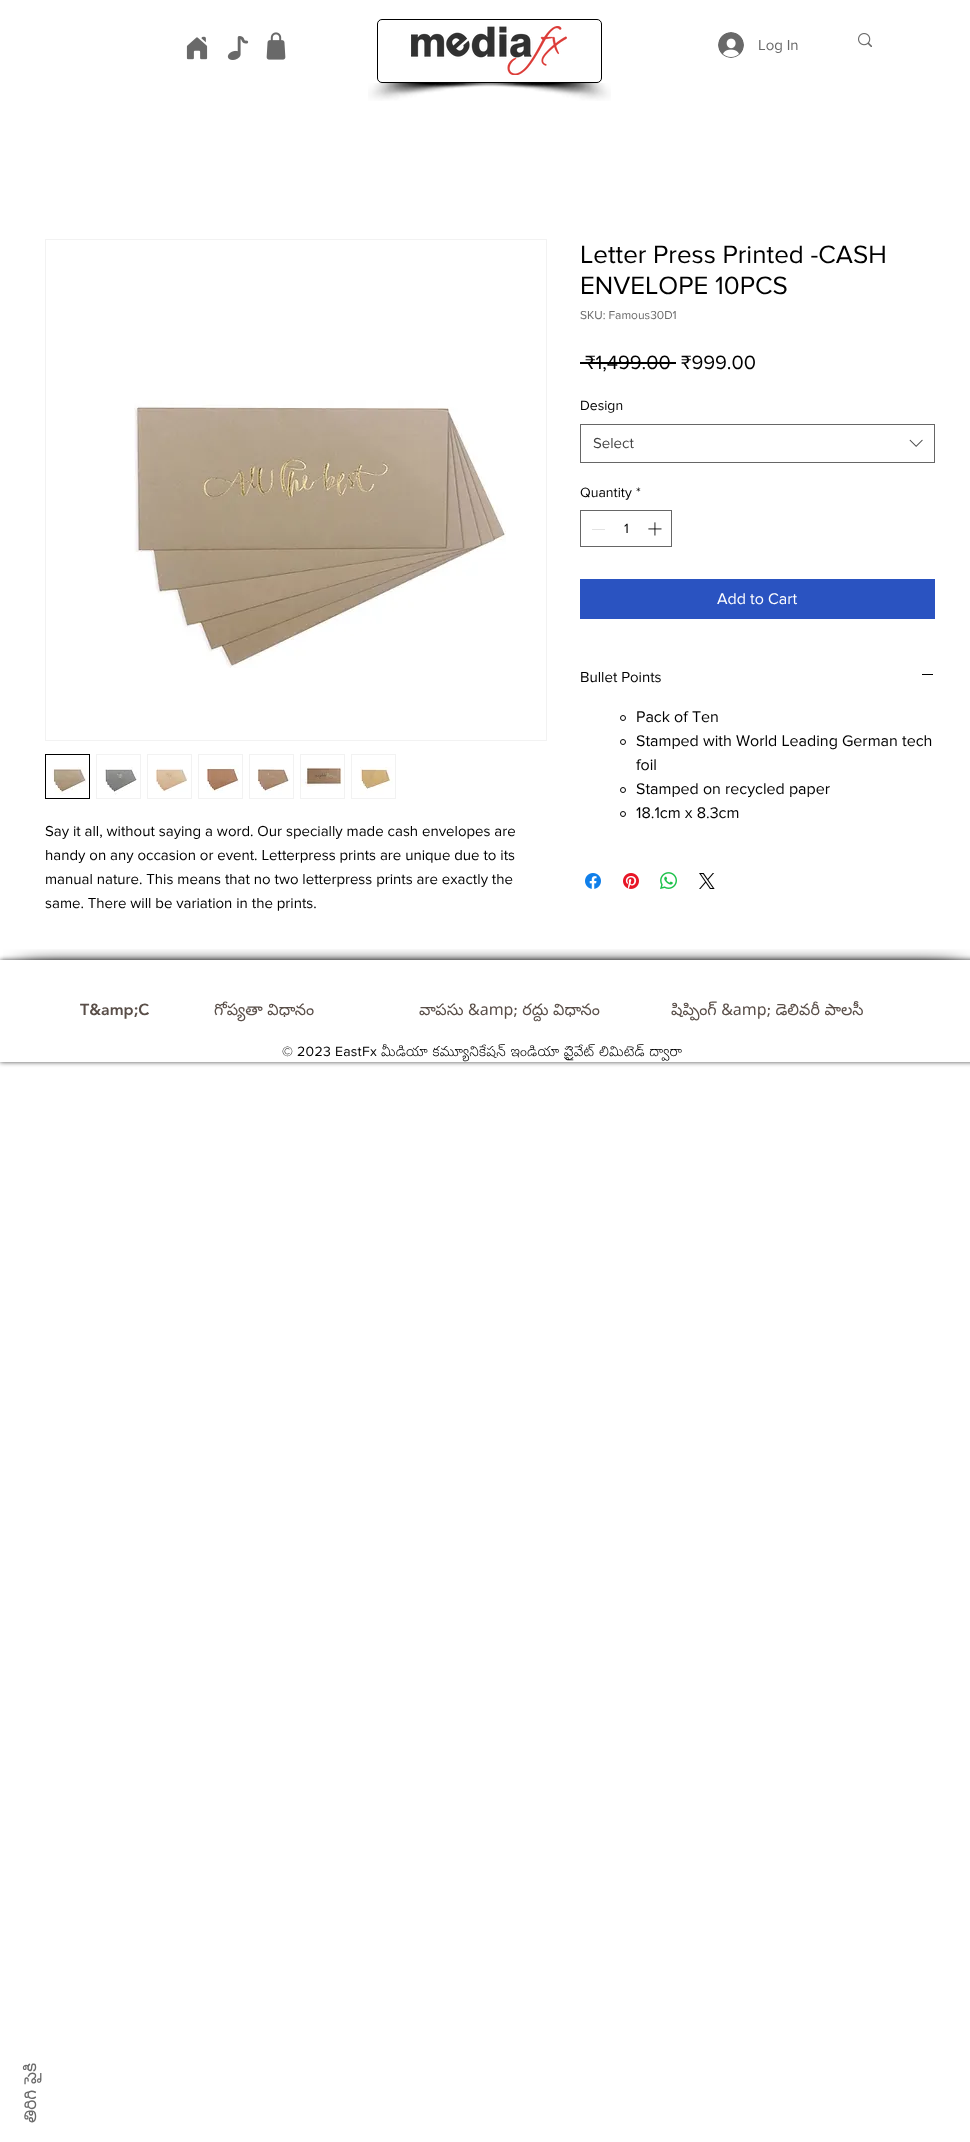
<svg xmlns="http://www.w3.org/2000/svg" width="970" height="2142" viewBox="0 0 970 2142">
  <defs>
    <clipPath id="clip1"><path d="M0 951H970V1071H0ZM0 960H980V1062H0Z" clip-rule="evenodd"/></clipPath>
  </defs>
  <rect width="100%" height="100%" fill="rgb(255,255,255)"/>
  <rect x="377.5" y="19.5" width="224" height="63" rx="4.5" fill="none" stroke="rgb(0,0,0)"/>
  <image x="411" y="26" width="156" height="49" href="pic1.png"/>
  <image x="368" y="83" width="154" height="18" href="pic2.png"/>
  <image x="470" y="83" width="141" height="18" href="pic3.png"/>
  <image x="186" y="36" width="22" height="24" href="pic4.png"/>
  <image x="227" y="36" width="22" height="24" href="pic5.png"/>
  <image x="266" y="32" width="20" height="28" href="pic6.png"/>
  <image x="718" y="32" width="26" height="26" href="pic7.png"/>
  <text x="758" y="50" font-family="'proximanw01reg'" font-size="15" fill="rgb(105,105,105)">Log In</text>
  <image x="858" y="33" width="14" height="14" href="pic8.png"/>
  <g font-family="'proximanw01reg'" font-size="26" fill="rgb(0,0,0)">
    <text>
      <tspan x="580" y="263">Letter Press Printed -CASH</tspan>
      <tspan x="580" y="294">ENVELOPE 10PCS</tspan>
    </text>
  </g>
  <text x="580" y="319" font-family="'proximanw01reg'" font-size="12" fill="rgb(105,105,105)">SKU: Famous30D1</text>
  <text x="585" y="369" font-family="'proximanw01reg'" font-size="20" fill="rgb(0,0,0)">₹1,499.00</text>
  <rect x="580" y="362" width="96" height="2" fill="rgb(0,0,0)"/>
  <text x="681" y="369" font-family="'proximanw01reg'" font-size="20" fill="rgb(0,0,0)">₹999.00</text>
  <text x="580" y="410" font-family="'proximanw01reg'" font-size="14" fill="rgb(0,0,0)">Design</text>
  <rect x="580.5" y="424.5" width="354" height="38" fill="none" stroke="rgb(102,102,102)"/>
  <text x="593" y="448" font-family="'proximanw01reg'" font-size="15" fill="rgb(68,68,68)">Select</text>
  <image x="909" y="439" width="14" height="8" href="pic9.png"/>
  <g font-family="'proximanw01reg'" font-size="14" fill="rgb(0,0,0)">
    <text x="580" y="497">Quantity</text>
    <text x="636" y="497">*</text>
  </g>
  <rect x="580.5" y="510.5" width="91" height="36" fill="none" stroke="rgb(102,102,102)"/>
  <rect x="592" y="529" width="13" height="1" fill="rgb(227,227,227)"/>
  <text x="624" y="533" font-family="'proximanw01reg'" font-size="14" fill="rgb(0,0,0)">1</text>
  <image x="648" y="522" width="14" height="14" href="pic10.png"/>
  <rect x="580" y="579" width="355" height="40" fill="rgb(42,83,193)"/>
  <text x="717" y="604" font-family="'proximanw01reg'" font-size="16" fill="rgb(255,255,255)">Add to Cart</text>
  <text x="580" y="682" font-family="'proximanw01reg'" font-size="15" fill="rgb(0,0,0)">Bullet Points</text>
  <rect x="922" y="674" width="11" height="1" fill="rgb(0,0,0)"/>
  <circle cx="623" cy="718" r="2.5" fill="none" stroke="rgb(0,0,0)"/>
  <text x="636" y="722" font-family="'proximanw01reg'" font-size="16" fill="rgb(0,0,0)">Pack of Ten</text>
  <circle cx="623" cy="742" r="2.5" fill="none" stroke="rgb(0,0,0)"/>
  <g font-family="'proximanw01reg'" font-size="16" fill="rgb(0,0,0)">
    <text>
      <tspan x="636" y="746">Stamped with World Leading German tech</tspan>
      <tspan x="636" y="770">foil</tspan>
    </text>
  </g>
  <circle cx="623" cy="790" r="2.5" fill="none" stroke="rgb(0,0,0)"/>
  <text x="636" y="794" font-family="'proximanw01reg'" font-size="16" fill="rgb(0,0,0)">Stamped on recycled paper</text>
  <circle cx="623" cy="814" r="2.5" fill="none" stroke="rgb(0,0,0)"/>
  <text x="636" y="818" font-family="'proximanw01reg'" font-size="16" fill="rgb(0,0,0)">18.1cm x 8.3cm</text>
  <image x="585" y="873" width="16" height="16" href="pic11.png"/>
  <image x="623" y="873" width="16" height="16" href="pic12.png"/>
  <image x="660" y="872" width="17" height="17" href="pic13.png"/>
  <image x="699" y="873" width="16" height="16" href="pic14.png"/>
  <rect x="45.5" y="239.5" width="501" height="501" fill="none" stroke="rgb(242,242,242)"/>
  <image x="134" y="400" width="372" height="268" href="pic15.png"/>
  <rect x="45.5" y="754.5" width="44" height="44" fill="none" stroke="rgb(0,0,0)"/>
  <image x="52" y="767" width="34" height="28" href="pic16.png"/>
  <rect x="96.5" y="754.5" width="44" height="44" fill="none" stroke="rgb(242,242,242)"/>
  <image x="105" y="767" width="32" height="28" href="pic17.png"/>
  <rect x="147.5" y="754.5" width="44" height="44" fill="none" stroke="rgb(242,242,242)"/>
  <image x="155" y="768" width="33" height="24" href="pic18.png"/>
  <rect x="198.5" y="754.5" width="44" height="44" fill="none" stroke="rgb(242,242,242)"/>
  <image x="206" y="765" width="33" height="28" href="pic19.png"/>
  <rect x="249.5" y="754.5" width="44" height="44" fill="none" stroke="rgb(242,242,242)"/>
  <image x="257" y="767" width="33" height="28" href="pic20.png"/>
  <rect x="300.5" y="754.5" width="44" height="44" fill="none" stroke="rgb(242,242,242)"/>
  <image x="301" y="767" width="41" height="20" href="pic21.png"/>
  <rect x="351.5" y="754.5" width="44" height="44" fill="none" stroke="rgb(242,242,242)"/>
  <image x="360" y="767" width="33" height="28" href="pic22.png"/>
  <g font-family="'proximanw01reg'" font-size="15" fill="rgb(0,0,0)">
    <text>
      <tspan x="45" y="836">Say it all, without saying a word. Our specially made cash envelopes are</tspan>
      <tspan x="45" y="860">handy on any occasion or event. Letterpress prints are unique due to its</tspan>
      <tspan x="45" y="884">manual nature. This means that no two letterpress prints are exactly the</tspan>
      <tspan x="45" y="908">same. There will be variation in the prints.</tspan>
    </text>
  </g>
  <g clip-path="url(#clip1)">
    <rect x="0" y="960" width="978" height="102" fill="rgba(0,0,0,0.7)" filter="blur(2.5px)"/>
  </g>
  <image x="3" y="949" width="97" height="11" href="pic23.png"/>
  <image x="100" y="949" width="780" height="11" href="pic24.png"/>
  <image x="880" y="949" width="90" height="11" href="pic25.png"/>
  <text x="80" y="1015" font-family="'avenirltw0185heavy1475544'" font-size="16" font-weight="900" fill="rgb(89,78,72)">T&amp;amp;C</text>
  <g font-family="Noto Sans Telugu" font-size="16" fill="rgb(89,78,72)">
    <text x="214" y="1015">గోప్యతా విధానం</text>
    <text x="419" y="1015">వాపసు &amp;amp; రద్దు విధానం</text>
    <text x="671" y="1015">షిప్పింగ్ &amp;amp; డెలివరీ పాలసీ</text>
  </g>
  <text x="282" y="1056" font-family="'proximanw01reg'" font-size="14" letter-spacing="0.28" fill="rgb(0,0,0)">© 2023 EastFx</text>
  <text x="381" y="1056" word-spacing="0.25" font-family="Noto Sans Telugu" font-size="14" font-weight="300" letter-spacing="0.28" fill="rgb(0,0,0)">మీడియా కమ్యూనికేషన్ ఇండియా ప్రైవేట్ లిమిటెడ్ ద్వారా</text>
  <text x="36" y="2123" transform="rotate(-90 36 2123)" word-spacing="1" font-family="Noto Sans Telugu" font-size="17" fill="rgb(105,105,105)">తిరిగి పైకి</text>
</svg>
